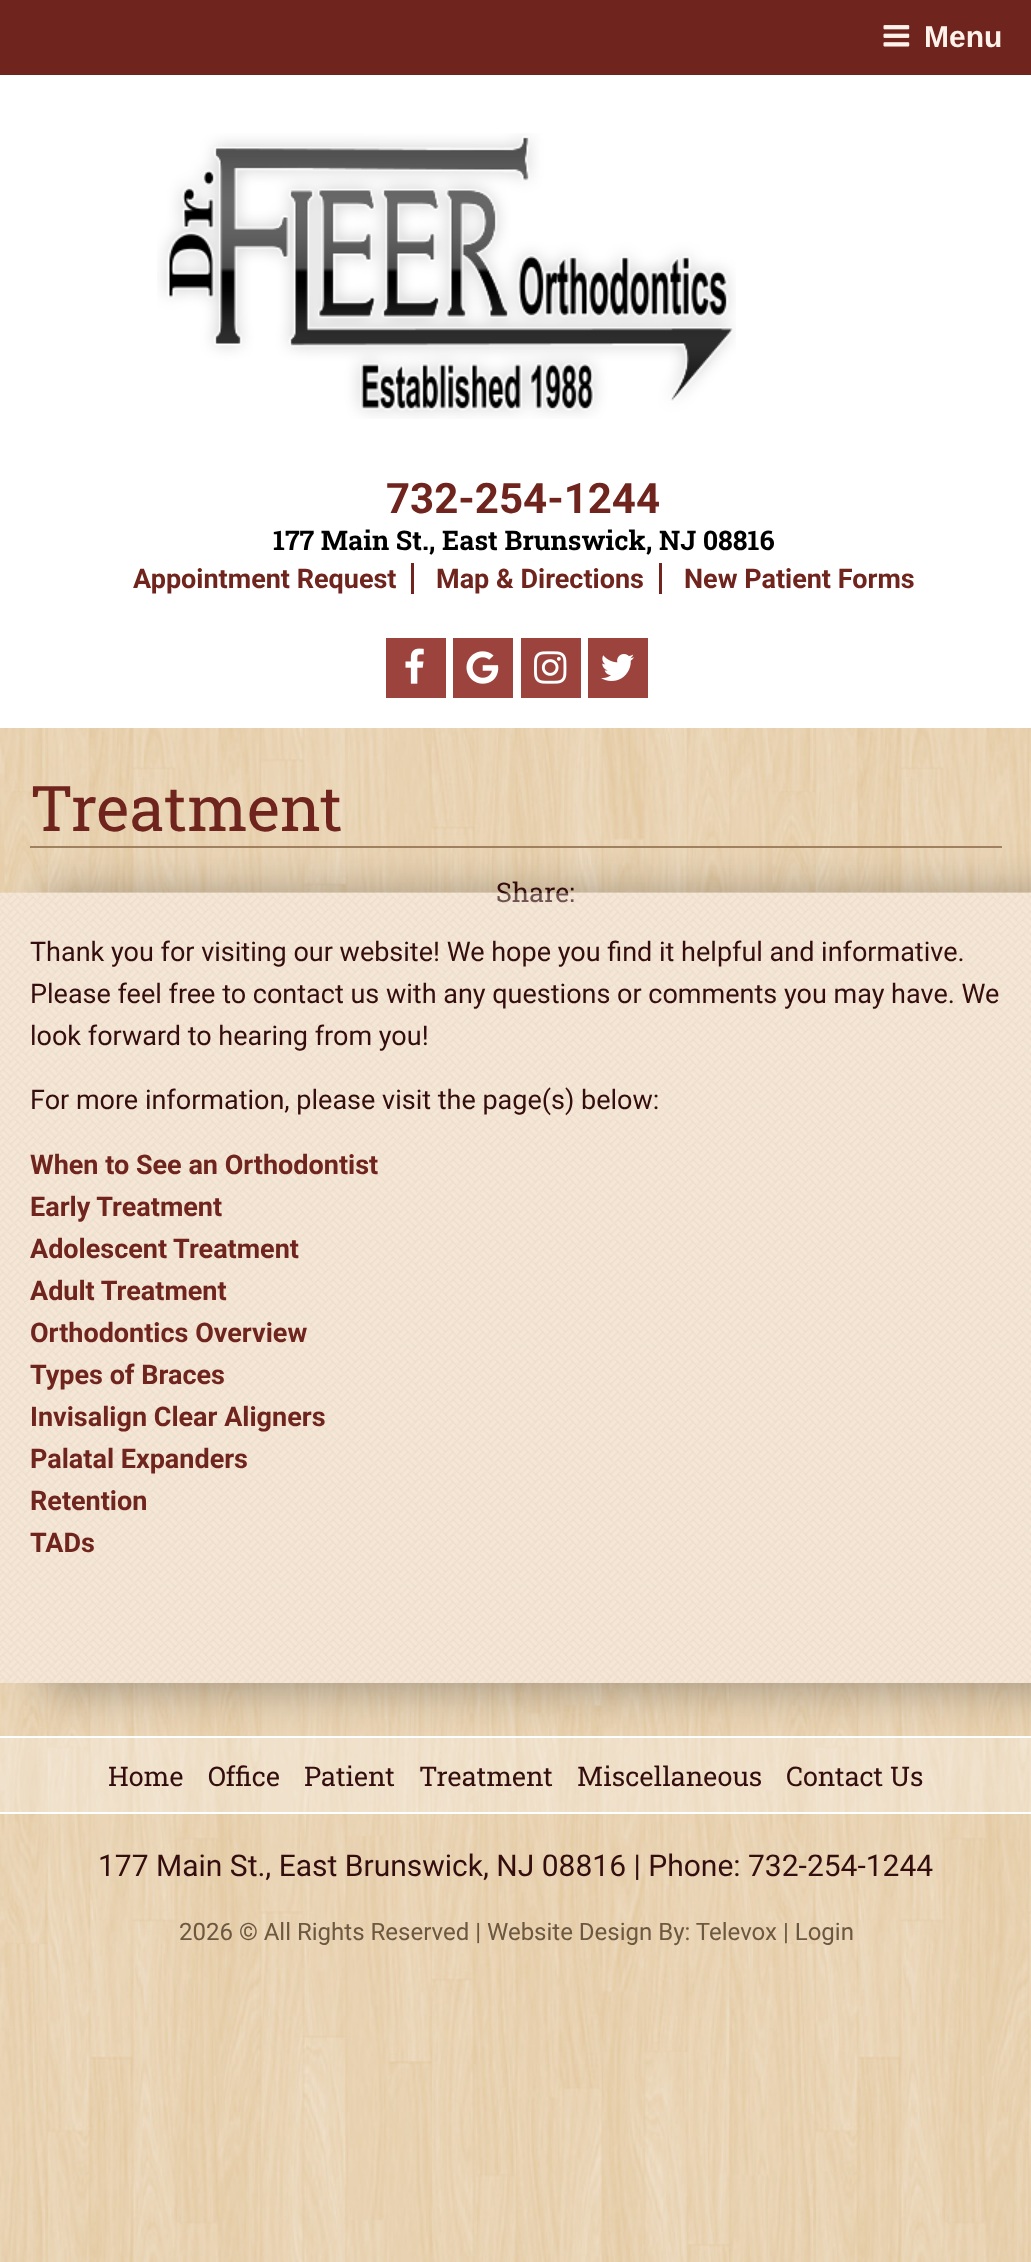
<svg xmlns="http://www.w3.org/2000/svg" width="1031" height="2262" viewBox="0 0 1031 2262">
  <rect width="100%" height="100%" fill="rgb(255,255,255)"/>
  <image x="0" y="728" width="1031" height="1534" href="pic1.png"/>
  <rect x="0" y="0" width="1031" height="75" fill="rgb(111,36,30)"/>
  <image x="883" y="25" width="27" height="22" href="pic2.png"/>
  <text x="924" y="47" font-family="Liberation Sans" font-size="30" font-weight="bold" fill="rgb(255,242,234)">Menu</text>
  <image x="157" y="133" width="579" height="286" href="pic3.png"/>
  <text x="386" y="513" font-family="Roboto" font-size="42" font-weight="bold" fill="rgb(111,36,30)">732-254-1244</text>
  <text x="273" y="550" font-family="Roboto Slab" font-size="27" font-weight="bold" fill="rgb(0,0,0)">177 Main St., East Brunswick, NJ 08816</text>
  <text x="133" y="588" font-family="Roboto" font-size="27" font-weight="bold" fill="rgb(111,36,30)">Appointment Request</text>
  <rect x="411" y="563" width="3" height="31" fill="rgb(111,36,30)"/>
  <text x="436" y="588" font-family="Roboto" font-size="27" font-weight="bold" fill="rgb(111,36,30)">Map &amp; Directions</text>
  <rect x="659" y="563" width="3" height="31" fill="rgb(111,36,30)"/>
  <text x="684" y="588" font-family="Roboto" font-size="27" font-weight="bold" fill="rgb(111,36,30)">New Patient Forms</text>
  <rect x="386" y="638" width="60" height="60" fill="rgb(156,67,61)"/>
  <image x="405" y="648" width="19" height="36" href="pic4.png"/>
  <rect x="453" y="638" width="60" height="60" fill="rgb(156,67,61)"/>
  <image x="466" y="651" width="33" height="33" href="pic5.png"/>
  <rect x="521" y="638" width="60" height="60" fill="rgb(156,67,61)"/>
  <image x="534" y="651" width="33" height="33" href="pic6.png"/>
  <rect x="588" y="638" width="60" height="60" fill="rgb(156,67,61)"/>
  <image x="601" y="654" width="33" height="27" href="pic7.png"/>
  <rect x="42" y="893" width="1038" height="796" fill="rgba(0,0,0,0.3)" filter="blur(22.5px)"/>
  <rect x="30" y="846" width="972" height="2" fill="rgb(159,128,95)"/>
  <text x="30" y="831" font-family="Roboto Slab" font-size="63" fill="rgb(111,36,30)">Treatment</text>
  <image x="0" y="892" width="1031" height="791" href="pic8.png"/>
  <text x="496" y="902" font-family="Roboto Slab" font-size="27" fill="rgb(52,13,14)">Share:</text>
  <rect x="0" y="893" width="1031" height="790" fill="rgba(251,244,237,0.3)"/>
  <g font-family="Roboto" font-size="27" fill="rgb(52,13,14)">
    <text>
      <tspan x="30" y="961">Thank you for visiting our website! We hope you find it helpful and informative.</tspan>
      <tspan x="30" y="1003">Please feel free to contact us with any questions or comments you may have. We</tspan>
      <tspan x="30" y="1045">look forward to hearing from you!</tspan>
    </text>
    <text x="30" y="1109">For more information, please visit the page(s) below:</text>
  </g>
  <g font-family="Roboto" font-size="27" font-weight="bold" fill="rgb(111,36,30)">
    <text>
      <tspan x="30" y="1174">When to See an Orthodontist</tspan>
      <tspan x="30" y="1216">Early Treatment</tspan>
      <tspan x="30" y="1258">Adolescent Treatment</tspan>
      <tspan x="30" y="1300">Adult Treatment</tspan>
      <tspan x="30" y="1342">Orthodontics Overview</tspan>
      <tspan x="30" y="1384">Types of Braces</tspan>
      <tspan x="30" y="1426">Invisalign Clear Aligners</tspan>
      <tspan x="30" y="1468">Palatal Expanders</tspan>
      <tspan x="30" y="1510">Retention</tspan>
      <tspan x="30" y="1552">TADs</tspan>
    </text>
  </g>
  <rect x="0" y="1738" width="1031" height="74" fill="rgba(255,255,255,0.3)"/>
  <rect x="0" y="1736" width="1031" height="2" fill="rgb(255,255,255)"/>
  <rect x="0" y="1812" width="1031" height="2" fill="rgb(255,255,255)"/>
  <g font-family="Roboto Slab" font-size="27" fill="rgb(52,13,14)">
    <text x="108" y="1786">Home</text>
    <text x="208" y="1786">Office</text>
    <text x="304" y="1786">Patient</text>
    <text x="419" y="1786">Treatment</text>
    <text x="577" y="1786">Miscellaneous</text>
    <text x="786" y="1786">Contact Us</text>
  </g>
  <text x="98" y="1876" font-family="Roboto" font-size="30" fill="rgb(52,13,14)">177 Main St., East Brunswick, NJ 08816 | Phone: 732-254-1244</text>
  <text x="179" y="1940" font-family="Roboto" font-size="24" fill="rgb(108,87,65)">2026 © All Rights Reserved | Website Design By: Televox | Login</text>
</svg>
